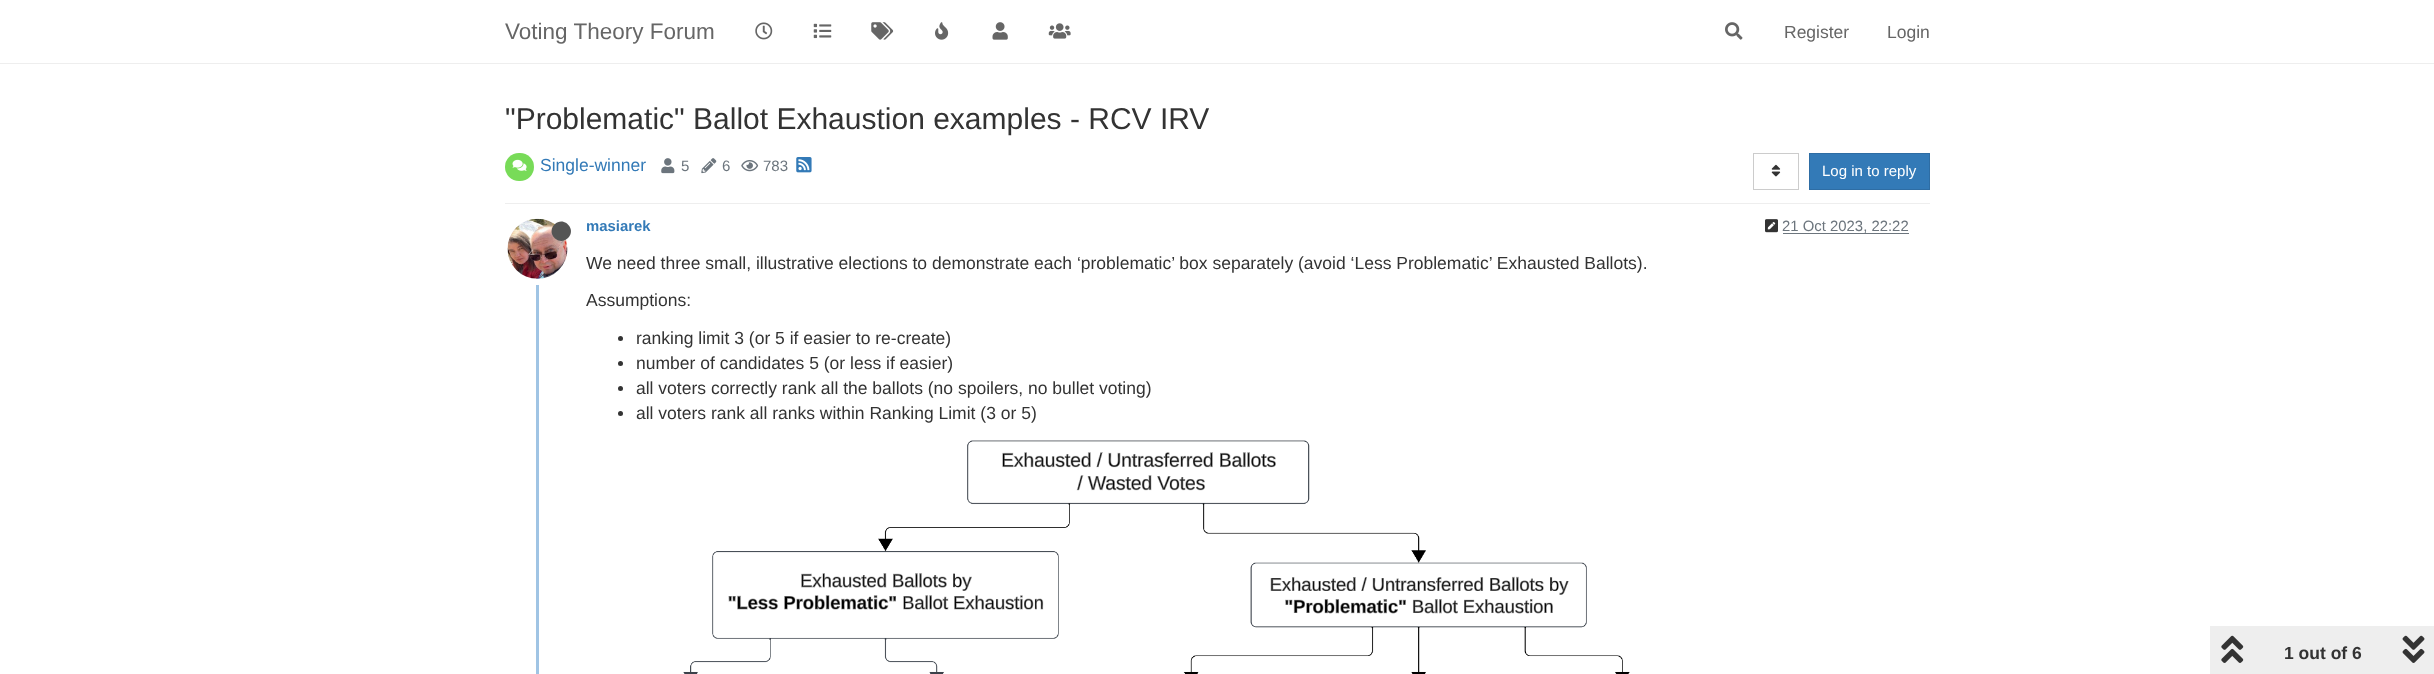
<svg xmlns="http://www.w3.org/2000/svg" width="2434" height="674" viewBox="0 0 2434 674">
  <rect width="100%" height="100%" fill="rgb(255,255,255)"/>
  <rect x="0" y="63" width="2434" height="1" fill="rgb(238,238,238)"/>
  <text x="505" y="39" font-family="Liberation Sans" font-size="22.5" fill="rgb(102,102,102)">Voting Theory Forum</text>
  <image x="755" y="22" width="18" height="18" href="pic1.png"/>
  <image x="813" y="23" width="19" height="16" href="pic2.png"/>
  <image x="871" y="22" width="23" height="18" href="pic3.png"/>
  <image x="935" y="22" width="14" height="18" href="pic4.png"/>
  <image x="992" y="22" width="16" height="18" href="pic5.png"/>
  <image x="1048" y="23" width="23" height="16" href="pic6.png"/>
  <image x="1725" y="22" width="18" height="18" href="pic7.png"/>
  <g font-family="Liberation Sans" font-size="17.5" fill="rgb(102,102,102)">
    <text x="1784" y="38">Register</text>
    <text x="1887" y="38">Login</text>
  </g>
  <text x="505" y="129" font-family="Liberation Sans" font-size="30" fill="rgb(51,51,51)">"Problematic" Ballot Exhaustion examples - RCV IRV</text>
  <rect x="505" y="203" width="1425" height="1" fill="rgb(238,238,238)"/>
  <rect x="505" y="153" width="29" height="28" rx="14" fill="rgb(120,219,88)"/>
  <image x="512" y="159" width="15" height="12" href="pic8.png"/>
  <text x="540" y="171" font-family="Liberation Sans" font-size="17.5" fill="rgb(51,122,183)">Single-winner</text>
  <image x="661" y="158" width="14" height="16" href="pic9.png"/>
  <text x="681" y="171" font-family="Liberation Sans" font-size="15" fill="rgb(108,117,125)">5</text>
  <image x="701" y="158" width="16" height="16" href="pic10.png"/>
  <text x="722" y="171" font-family="Liberation Sans" font-size="15" fill="rgb(108,117,125)">6</text>
  <image x="741" y="160" width="18" height="12" href="pic11.png"/>
  <text x="763" y="171" font-family="Liberation Sans" font-size="15" fill="rgb(108,117,125)">783</text>
  <image x="796" y="157" width="16" height="16" href="pic12.png"/>
  <rect x="1753.5" y="153.5" width="45" height="36" fill="none" stroke="rgb(204,204,204)"/>
  <image x="1771" y="164" width="10" height="13" href="pic13.png"/>
  <rect x="1809.5" y="153.5" width="120" height="36" fill="rgb(51,122,183)" stroke="rgb(46,109,164)"/>
  <text x="1822" y="176" font-family="Liberation Sans" font-size="15" fill="rgb(255,255,255)">Log in to reply</text>
  <rect x="536" y="278" width="3" height="396" fill="rgb(160,196,228)"/>
  <rect x="504" y="216" width="67" height="66" rx="33" fill="none" stroke="rgb(255,255,255)" stroke-width="6"/>
  <image x="507" y="218" width="61" height="61" href="pic14.png"/>
  <path d="M554.5 224.5C563.5 215.5 577 229 568 238C559 247 545.5 233.5 554.5 224.5Z" fill="rgb(85,85,85)"/>
  <text x="586" y="231" font-family="Liberation Sans" font-size="14.9" font-weight="bold" fill="rgb(51,122,183)">masiarek</text>
  <image x="1765" y="219" width="13" height="14" href="pic15.png"/>
  <text x="1782" y="231" font-family="Liberation Sans" font-size="14.9" fill="rgb(108,117,125)">21 Oct 2023, 22:22</text>
  <rect x="1783" y="233" width="126" height="1" fill="rgb(108,117,125)"/>
  <g font-family="Liberation Sans" font-size="17.5" fill="rgb(51,51,51)">
    <text x="586" y="269">We need three small, illustrative elections to demonstrate each ‘problematic’ box separately (avoid ‘Less Problematic’ Exhausted Ballots).</text>
    <text x="586" y="306">Assumptions:</text>
  </g>
  <circle cx="620.5" cy="338.5" r="2.5" fill="rgb(51,51,51)"/>
  <text x="636" y="344" font-family="Liberation Sans" font-size="17.5" fill="rgb(51,51,51)">ranking limit 3 (or 5 if easier to re-create)</text>
  <circle cx="620.5" cy="363.5" r="2.5" fill="rgb(51,51,51)"/>
  <text x="636" y="369" font-family="Liberation Sans" font-size="17.5" fill="rgb(51,51,51)">number of candidates 5 (or less if easier)</text>
  <circle cx="620.5" cy="388.5" r="2.5" fill="rgb(51,51,51)"/>
  <text x="636" y="394" font-family="Liberation Sans" font-size="17.5" fill="rgb(51,51,51)">all voters correctly rank all the ballots (no spoilers, no bullet voting)</text>
  <circle cx="620.5" cy="413.5" r="2.5" fill="rgb(51,51,51)"/>
  <text x="636" y="419" font-family="Liberation Sans" font-size="17.5" fill="rgb(51,51,51)">all voters rank all ranks within Ranking Limit (3 or 5)</text>
  <image x="683" y="440" width="947" height="234" href="pic16.png"/>
  <rect x="2210" y="626" width="224" height="48" fill="rgb(238,238,238)"/>
  <image x="2221" y="635" width="23" height="28" href="pic17.png"/>
  <text x="2284" y="659" font-family="Liberation Sans" font-size="17.5" font-weight="bold" fill="rgb(51,51,51)">1 out of 6</text>
  <image x="2402" y="635" width="23" height="28" href="pic18.png"/>
</svg>
